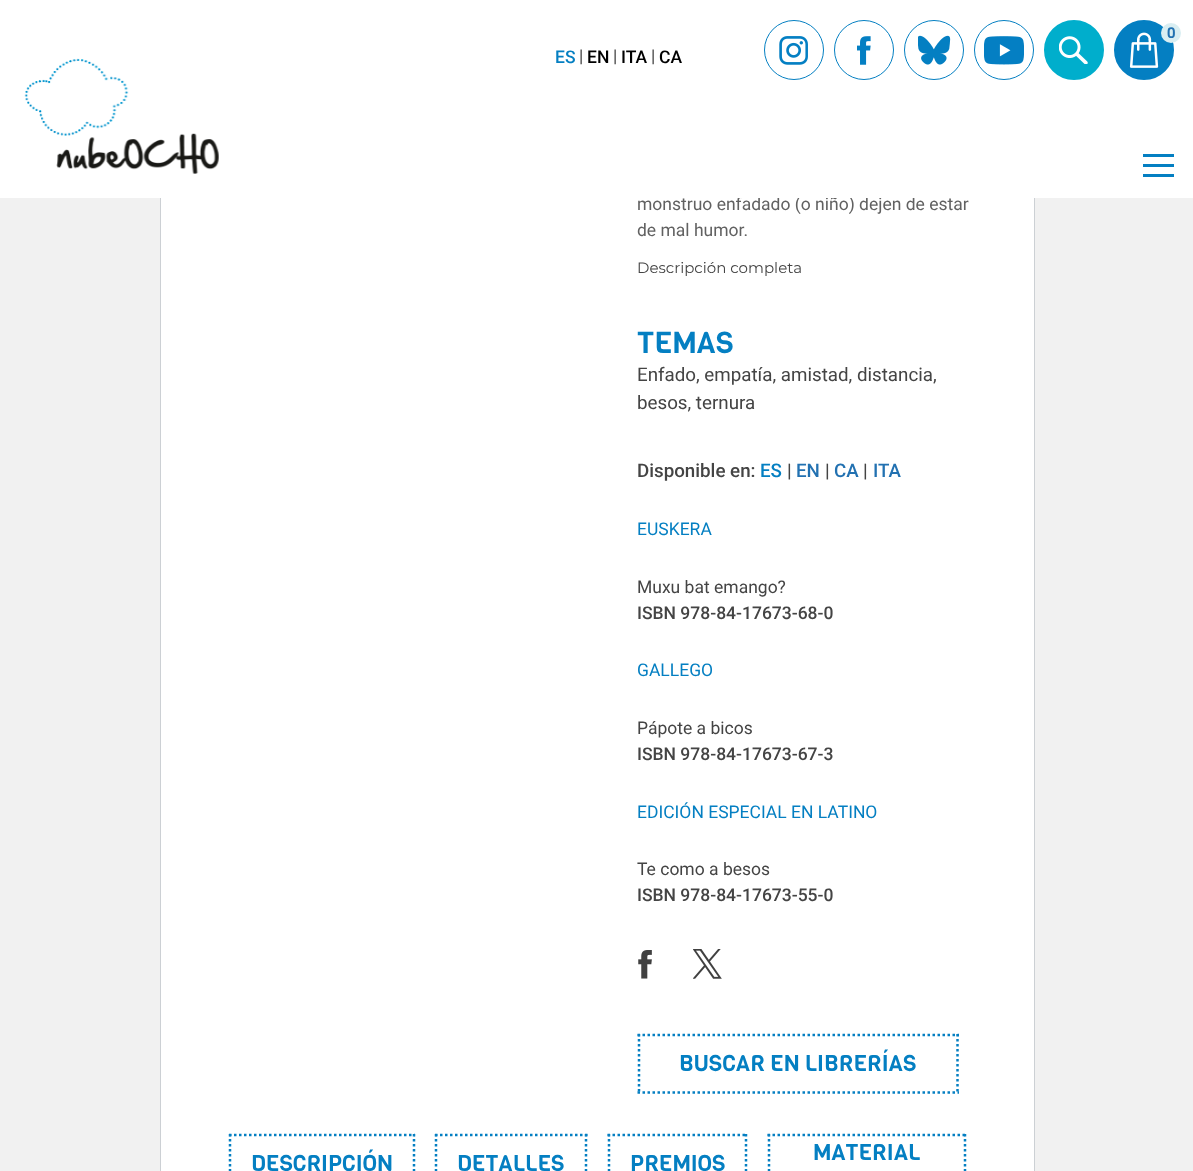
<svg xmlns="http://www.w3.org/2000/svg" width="1193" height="1171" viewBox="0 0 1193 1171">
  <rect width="100%" height="100%" fill="rgb(241,241,241)"/>
  <rect x="161" y="198" width="873" height="973" fill="rgb(255,255,255)"/>
  <rect x="160.5" y="-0.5" width="874" height="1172" fill="none" stroke="rgb(204,208,212)"/>
  <text x="637" y="210" font-family="Roboto" font-size="17.5" fill="rgb(97,97,97)">monstruo enfadado (o niño) dejen de estar</text>
  <rect x="0" y="0" width="1193" height="198" fill="rgb(255,255,255)"/>
  <circle cx="794" cy="50" r="29.5" fill="none" stroke="rgb(4,127,194)"/>
  <image x="779" y="36" width="29" height="29" href="pic1.png"/>
  <circle cx="864" cy="50" r="29.5" fill="none" stroke="rgb(4,127,194)"/>
  <image x="857" y="36" width="14" height="29" href="pic2.png"/>
  <circle cx="934" cy="50" r="29.5" fill="none" stroke="rgb(4,127,194)"/>
  <image x="918" y="35" width="33" height="30" href="pic3.png"/>
  <circle cx="1004" cy="50" r="29.5" fill="none" stroke="rgb(4,127,194)"/>
  <image x="984" y="36" width="40" height="29" href="pic4.png"/>
  <circle cx="1074" cy="50" r="28.5" fill="rgb(0,174,204)" stroke="rgb(0,174,204)" stroke-width="3"/>
  <image x="1059" y="36" width="29" height="28" href="pic5.png"/>
  <circle cx="1144" cy="50" r="28.5" fill="rgb(4,127,194)" stroke="rgb(4,127,194)" stroke-width="3"/>
  <image x="1129" y="32" width="30" height="36" href="pic6.png"/>
  <circle cx="1171" cy="33" r="10" fill="rgb(217,238,242)"/>
  <text x="1167" y="38" font-family="Viga" font-size="15" fill="rgb(34,113,177)">0</text>
  <text x="555" y="63" font-family="Roboto" font-size="17.5" font-weight="500" fill="rgb(4,127,194)">ES</text>
  <text x="579" y="62" font-family="Roboto" font-size="17.5" fill="rgb(68,68,68)">|</text>
  <text x="587" y="63" font-family="Roboto" font-size="17.5" font-weight="500" fill="rgb(0,0,0)">EN</text>
  <text x="613" y="62" font-family="Roboto" font-size="17.5" fill="rgb(68,68,68)">|</text>
  <text x="621" y="63" font-family="Roboto" font-size="17.5" font-weight="500" fill="rgb(0,0,0)">ITA</text>
  <text x="651" y="62" font-family="Roboto" font-size="17.5" fill="rgb(68,68,68)">|</text>
  <text x="659" y="63" font-family="Roboto" font-size="17.5" font-weight="500" fill="rgb(0,0,0)">CA</text>
  <rect x="1143" y="164" width="31" height="3" fill="rgb(4,127,194)"/>
  <rect x="1143" y="154" width="31" height="3" fill="rgb(4,127,194)"/>
  <rect x="1143" y="174" width="31" height="3" fill="rgb(4,127,194)"/>
  <image x="24" y="58" width="195" height="116" href="pic7.png"/>
  <text x="637" y="236" font-family="Roboto" font-size="17.5" fill="rgb(97,97,97)">de mal humor.</text>
  <text x="637" y="273" font-family="Montserrat" font-size="15" fill="rgb(68,68,68)">Descripción completa</text>
  <text x="637" y="353" font-family="Viga" font-size="30" fill="rgb(4,127,194)">TEMAS</text>
  <g font-family="Roboto" font-size="18.75" fill="rgb(68,68,68)">
    <text>
      <tspan x="637" y="381">Enfado, empatía, amistad, distancia,</tspan>
      <tspan x="637" y="409">besos, ternura</tspan>
    </text>
  </g>
  <text x="637" y="477" font-family="Roboto" font-size="18.75" font-weight="500" fill="rgb(68,68,68)">Disponible en:</text>
  <text x="760" y="477" font-family="Roboto" font-size="18.75" font-weight="500" fill="rgb(4,127,194)">ES</text>
  <text x="787" y="477" font-family="Roboto" font-size="18.75" font-weight="500" fill="rgb(68,68,68)">|</text>
  <text x="796" y="477" font-family="Roboto" font-size="18.75" font-weight="500" fill="rgb(34,113,177)">EN</text>
  <text x="825" y="477" font-family="Roboto" font-size="18.75" font-weight="500" fill="rgb(68,68,68)">|</text>
  <text x="834" y="477" font-family="Roboto" font-size="18.75" font-weight="500" fill="rgb(34,113,177)">CA</text>
  <text x="863" y="477" font-family="Roboto" font-size="18.75" font-weight="500" fill="rgb(68,68,68)">|</text>
  <text x="873" y="477" font-family="Roboto" font-size="18.75" font-weight="500" fill="rgb(34,113,177)">ITA</text>
  <text x="637" y="535" font-family="Roboto" font-size="17.5" fill="rgb(4,127,194)">EUSKERA</text>
  <text x="637" y="593" font-family="Roboto" font-size="17.5" fill="rgb(68,68,68)">Muxu bat emango?</text>
  <text x="637" y="619" font-family="Roboto" font-size="17.5" font-weight="500" fill="rgb(68,68,68)">ISBN 978-84-17673-68-0</text>
  <text x="637" y="676" font-family="Roboto" font-size="17.5" fill="rgb(4,127,194)">GALLEGO</text>
  <text x="637" y="734" font-family="Roboto" font-size="17.5" fill="rgb(68,68,68)">Pápote a bicos</text>
  <text x="637" y="760" font-family="Roboto" font-size="17.5" font-weight="500" fill="rgb(68,68,68)">ISBN 978-84-17673-67-3</text>
  <text x="637" y="818" font-family="Roboto" font-size="17.5" fill="rgb(4,127,194)">EDICIÓN ESPECIAL EN LATINO</text>
  <text x="637" y="875" font-family="Roboto" font-size="17.5" fill="rgb(68,68,68)">Te como a besos</text>
  <text x="637" y="901" font-family="Roboto" font-size="17.5" font-weight="500" fill="rgb(68,68,68)">ISBN 978-84-17673-55-0</text>
  <image x="638" y="950" width="14" height="29" href="pic8.png"/>
  <image x="693" y="949" width="29" height="30" href="pic9.png"/>
  <path d="M637.5 1035H959" fill="none" stroke="rgb(4,127,194)" stroke-width="2.5" stroke-dasharray="2.5 2.5"/>
  <path d="M957.5 1034V1094" fill="none" stroke="rgb(4,127,194)" stroke-width="2.5" stroke-dasharray="2.5 2.5"/>
  <path d="M637.5 1092.5H959" fill="none" stroke="rgb(4,127,194)" stroke-width="2.5" stroke-dasharray="2.5 2.5"/>
  <path d="M639 1034V1094" fill="none" stroke="rgb(4,127,194)" stroke-width="2.5" stroke-dasharray="2.5 2.5"/>
  <text x="679" y="1071" font-family="Viga" font-size="22.5" fill="rgb(4,127,194)">BUSCAR EN LIBRERÍAS</text>
  <path d="M229 1135H415" fill="none" stroke="rgb(4,127,194)" stroke-width="2.5" stroke-dasharray="2.5 2.5"/>
  <path d="M414 1134V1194" fill="none" stroke="rgb(4,127,194)" stroke-width="2.5" stroke-dasharray="2.5 2.5"/>
  <path d="M230 1134V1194" fill="none" stroke="rgb(4,127,194)" stroke-width="2.5" stroke-dasharray="2.5 2.5"/>
  <text x="251" y="1171" font-family="Viga" font-size="22.5" fill="rgb(4,127,194)">DESCRIPCIÓN</text>
  <path d="M435 1135H587.5" fill="none" stroke="rgb(4,127,194)" stroke-width="2.5" stroke-dasharray="2.5 2.5"/>
  <path d="M586 1134V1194" fill="none" stroke="rgb(4,127,194)" stroke-width="2.5" stroke-dasharray="2.5 2.5"/>
  <path d="M436 1134V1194" fill="none" stroke="rgb(4,127,194)" stroke-width="2.5" stroke-dasharray="2.5 2.5"/>
  <text x="457" y="1171" font-family="Viga" font-size="22.5" fill="rgb(4,127,194)">DETALLES</text>
  <path d="M607.5 1135H747.5" fill="none" stroke="rgb(4,127,194)" stroke-width="2.5" stroke-dasharray="2.5 2.5"/>
  <path d="M746 1134V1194" fill="none" stroke="rgb(4,127,194)" stroke-width="2.5" stroke-dasharray="2.5 2.5"/>
  <path d="M609 1134V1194" fill="none" stroke="rgb(4,127,194)" stroke-width="2.5" stroke-dasharray="2.5 2.5"/>
  <text x="630" y="1171" font-family="Viga" font-size="22.5" fill="rgb(4,127,194)">PREMIOS</text>
  <path d="M767.5 1135H966" fill="none" stroke="rgb(4,127,194)" stroke-width="2.5" stroke-dasharray="2.5 2.5"/>
  <path d="M965 1134V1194" fill="none" stroke="rgb(4,127,194)" stroke-width="2.5" stroke-dasharray="2.5 2.5"/>
  <path d="M769 1134V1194" fill="none" stroke="rgb(4,127,194)" stroke-width="2.5" stroke-dasharray="2.5 2.5"/>
  <text x="813" y="1160" font-family="Viga" font-size="22.5" fill="rgb(4,127,194)">MATERIAL</text>
</svg>
